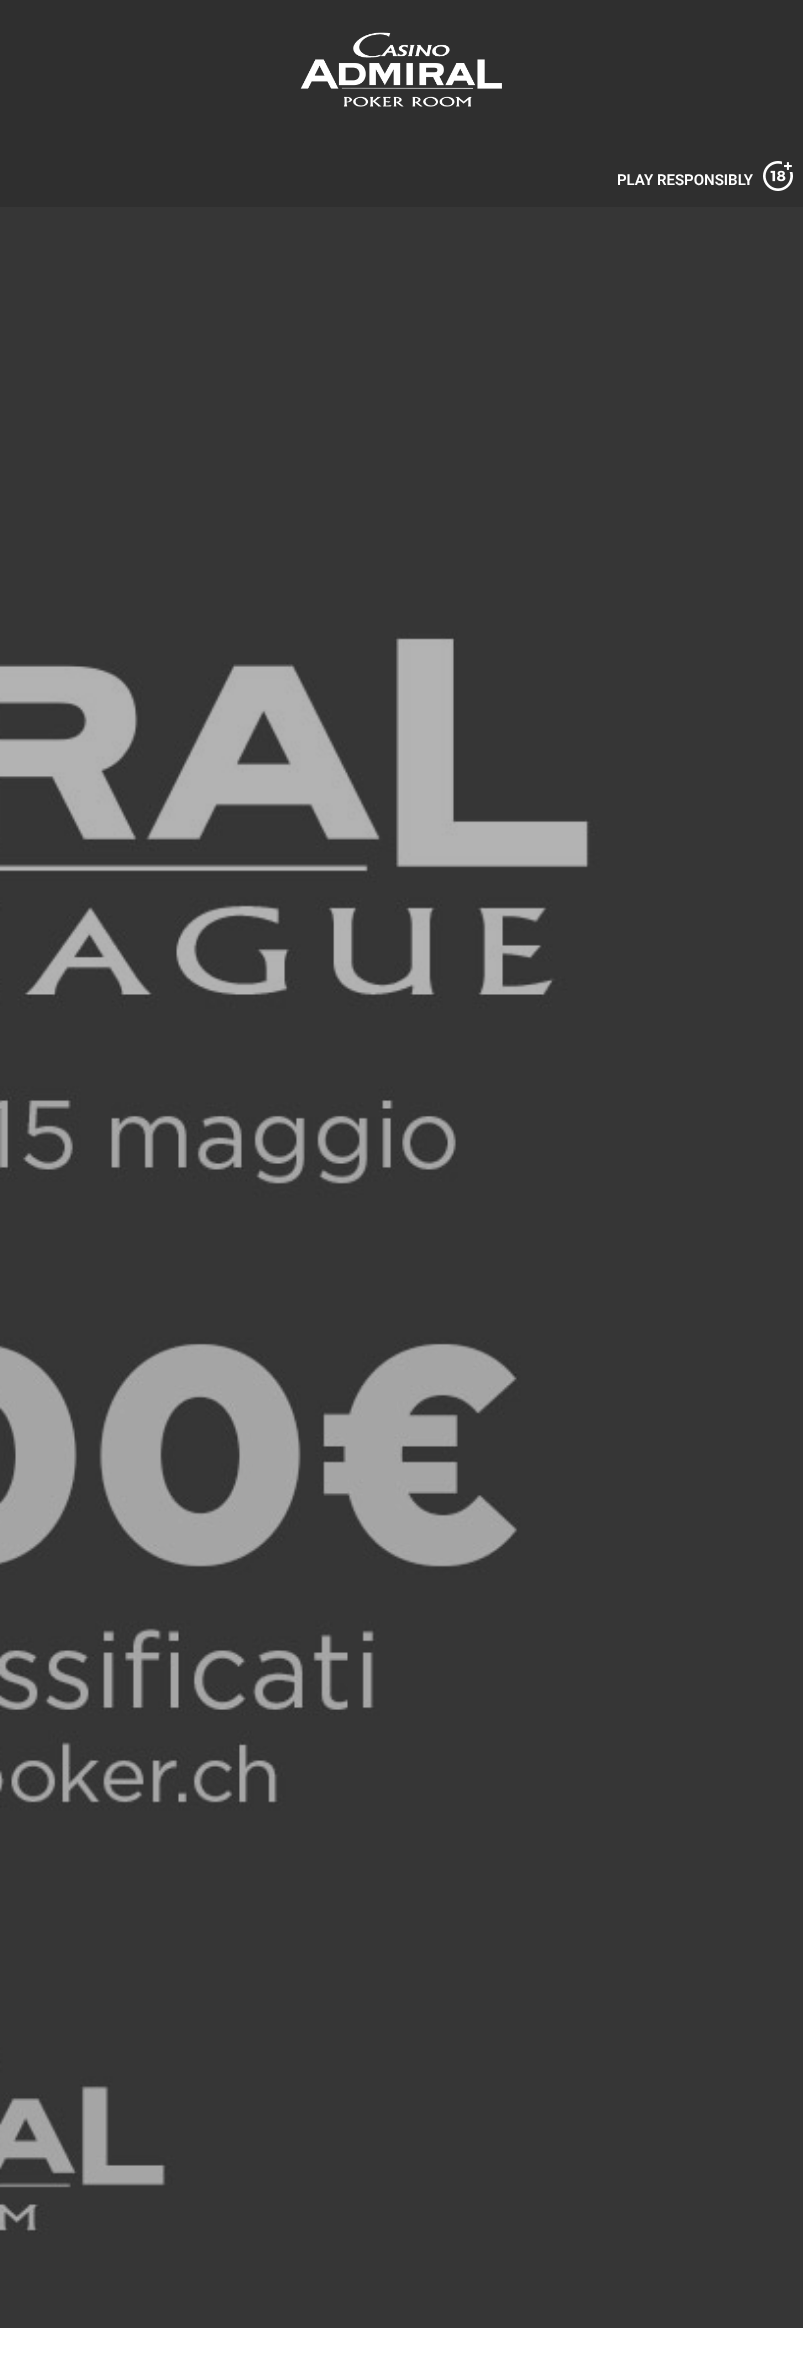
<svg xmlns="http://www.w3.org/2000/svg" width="803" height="2356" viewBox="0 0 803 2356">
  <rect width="100%" height="100%" fill="rgb(255,255,255)"/>
  <rect x="0" y="0" width="803" height="207" fill="rgb(47,47,47)"/>
  <image x="300" y="32" width="202" height="75" href="pic1.png"/>
  <text x="617" y="185" font-family="Roboto" font-size="15" font-weight="600" fill="rgb(255,255,255)">PLAY RESPONSIBLY</text>
  <image x="763" y="161" width="30" height="30" href="pic2.png"/>
  <image x="0" y="207" width="803" height="2121" href="pic3.png"/>
</svg>
